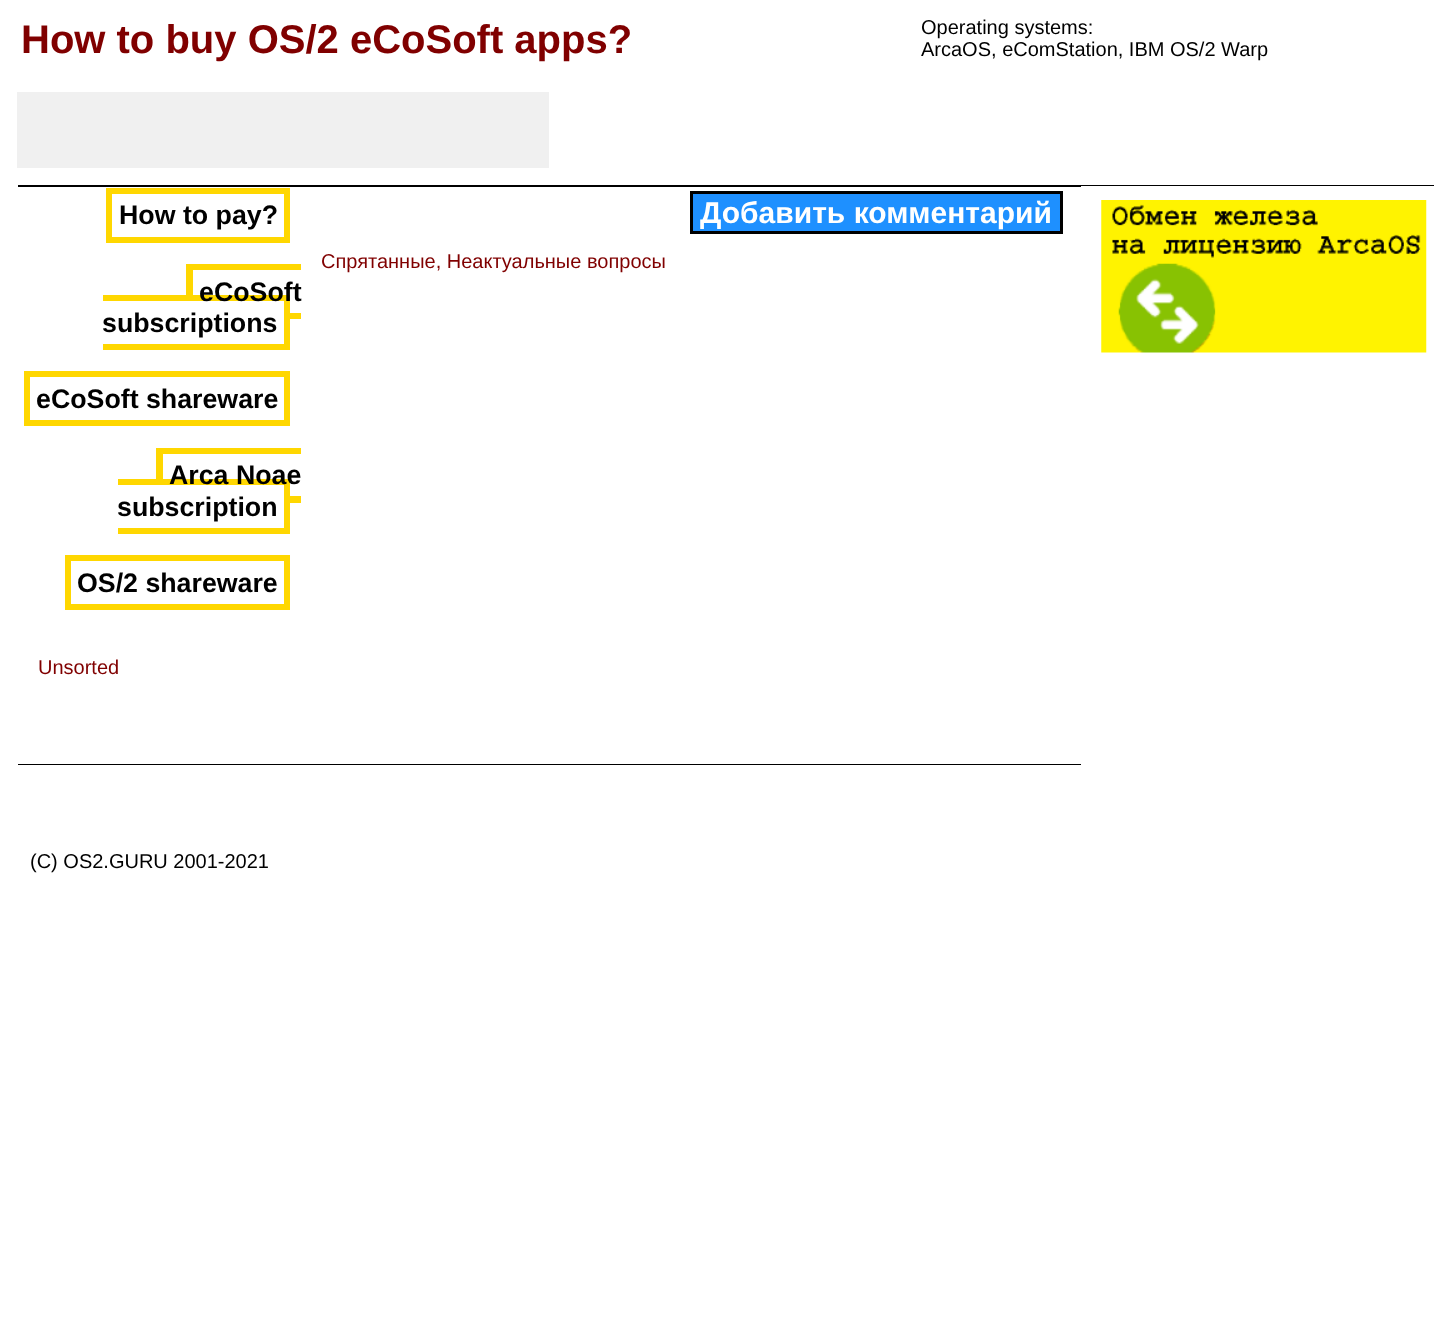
<svg xmlns="http://www.w3.org/2000/svg" width="1451" height="1326" viewBox="0 0 1451 1326">
  <rect width="100%" height="100%" fill="rgb(255,255,255)"/>
  <text x="21" y="53" font-family="Liberation Sans" font-size="40" font-weight="bold" fill="rgb(128,0,0)">How to buy OS/2 eCoSoft apps?</text>
  <g font-family="Liberation Sans" font-size="20" fill="rgb(0,0,0)">
    <text>
      <tspan x="921" y="34">Operating systems:</tspan>
      <tspan x="921" y="56">ArcaOS, eComStation, IBM OS/2 Warp</tspan>
    </text>
  </g>
  <rect x="17" y="92" width="532" height="76" fill="rgb(240,240,240)"/>
  <rect x="18" y="185" width="1416" height="1" fill="rgb(0,0,0)"/>
  <rect x="18" y="186" width="1063" height="1" fill="rgb(0,0,0)"/>
  <rect x="109" y="191" width="178" height="49" fill="none" stroke="rgb(255,215,0)" stroke-width="6"/>
  <text x="119" y="224" font-family="Liberation Sans" font-size="26.75" font-weight="bold" fill="rgb(0,0,0)">How to pay?</text>
  <rect x="103" y="295" width="187" height="6" fill="rgb(255,215,0)"/>
  <rect x="284" y="295" width="6" height="55" fill="rgb(255,215,0)"/>
  <text x="199" y="301" font-family="Liberation Sans" font-size="26.75" font-weight="bold" fill="rgb(0,0,0)">eCoSoft</text>
  <rect x="186" y="264" width="115" height="6" fill="rgb(255,215,0)"/>
  <rect x="186" y="264" width="7" height="31" fill="rgb(255,215,0)"/>
  <text x="102" y="332" font-family="Liberation Sans" font-size="26.75" font-weight="bold" fill="rgb(0,0,0)">subscriptions</text>
  <rect x="290" y="313" width="11" height="6" fill="rgb(255,215,0)"/>
  <rect x="103" y="344" width="187" height="6" fill="rgb(255,215,0)"/>
  <rect x="27" y="374" width="260" height="49" fill="none" stroke="rgb(255,215,0)" stroke-width="6"/>
  <text x="36" y="408" font-family="Liberation Sans" font-size="26.75" font-weight="bold" fill="rgb(0,0,0)">eCoSoft shareware</text>
  <rect x="118" y="479" width="172" height="6" fill="rgb(255,215,0)"/>
  <rect x="284" y="479" width="6" height="55" fill="rgb(255,215,0)"/>
  <text x="169" y="484" font-family="Liberation Sans" font-size="26.75" font-weight="bold" fill="rgb(0,0,0)">Arca Noae</text>
  <rect x="156" y="448" width="145" height="6" fill="rgb(255,215,0)"/>
  <rect x="156" y="448" width="7" height="31" fill="rgb(255,215,0)"/>
  <text x="117" y="516" font-family="Liberation Sans" font-size="26.75" font-weight="bold" fill="rgb(0,0,0)">subscription</text>
  <rect x="290" y="496" width="11" height="7" fill="rgb(255,215,0)"/>
  <rect x="118" y="528" width="172" height="6" fill="rgb(255,215,0)"/>
  <rect x="68" y="558" width="219" height="49" fill="none" stroke="rgb(255,215,0)" stroke-width="6"/>
  <text x="77" y="592" font-family="Liberation Sans" font-size="26.75" font-weight="bold" fill="rgb(0,0,0)">OS/2 shareware</text>
  <text x="38" y="674" font-family="Liberation Sans" font-size="20" fill="rgb(128,0,0)">Unsorted</text>
  <rect x="691.5" y="192.5" width="370" height="40" fill="rgb(30,144,255)" stroke="rgb(0,0,0)" stroke-width="3"/>
  <text x="700" y="223" font-family="Liberation Sans" font-size="30" font-weight="bold" fill="rgb(255,255,255)">Добавить комментарий</text>
  <text x="321" y="268" font-family="Liberation Sans" font-size="20" fill="rgb(128,0,0)">Спрятанные, Неактуальные вопросы</text>
  <image x="1101" y="200" width="326" height="153" href="pic1.png"/>
  <rect x="18" y="764" width="1063" height="1" fill="rgb(0,0,0)"/>
  <text x="30" y="868" font-family="Liberation Sans" font-size="20" fill="rgb(0,0,0)">(C) OS2.GURU 2001-2021</text>
</svg>
